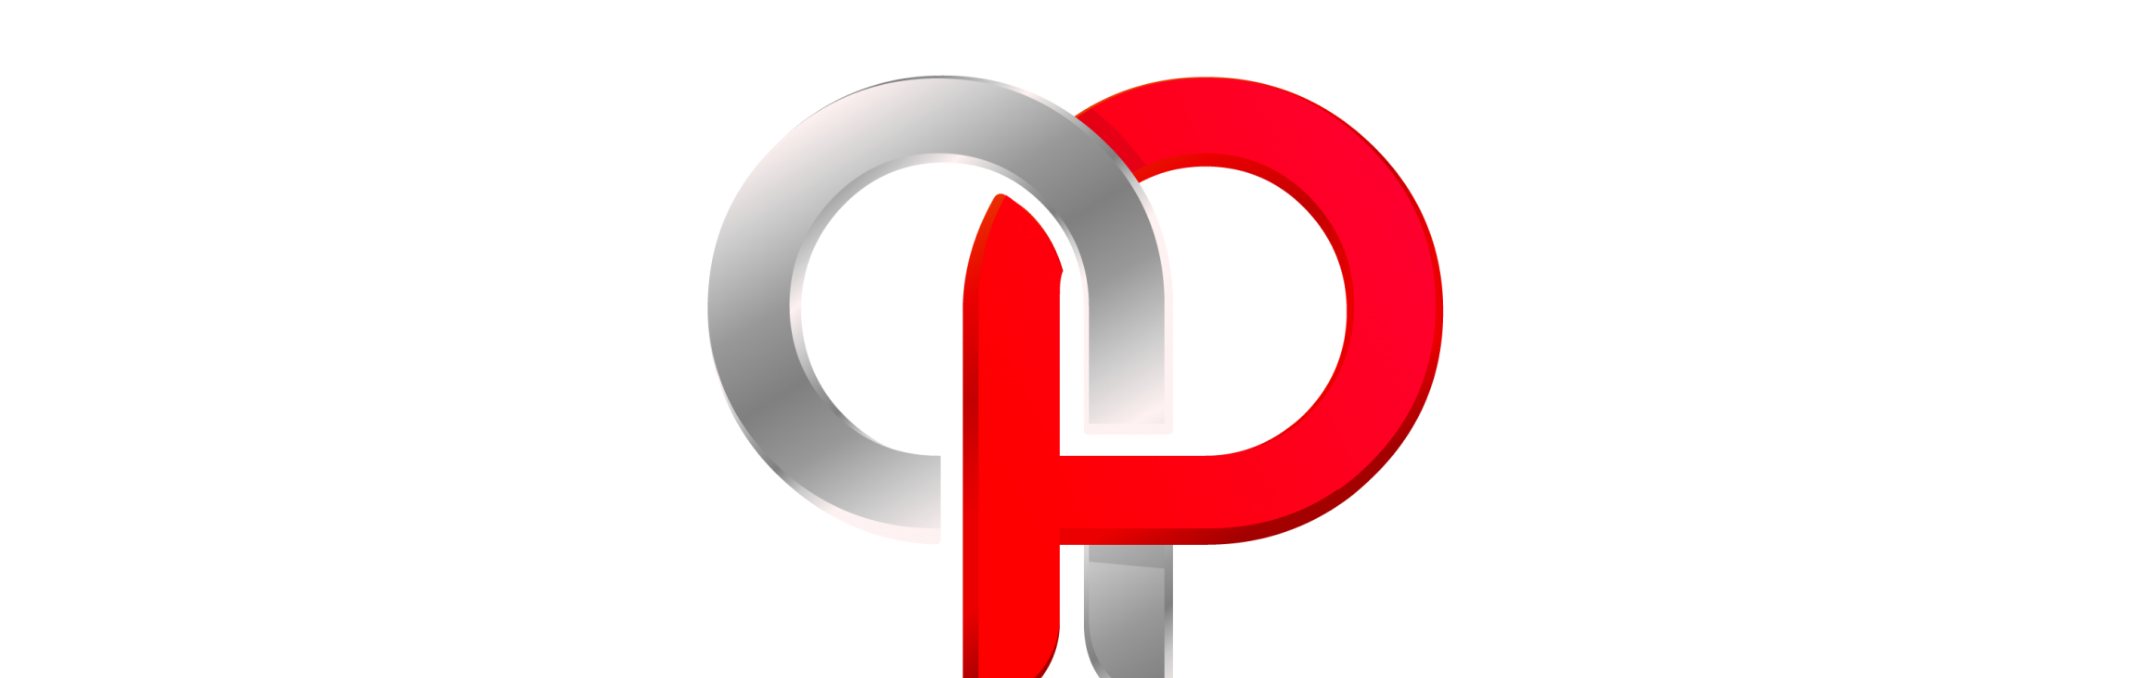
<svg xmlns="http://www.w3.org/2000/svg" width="2155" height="678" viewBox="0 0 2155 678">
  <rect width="100%" height="100%" fill="rgb(255,255,255)"/>
  <image x="707" y="74" width="737" height="604" href="pic1.png"/>
</svg>
